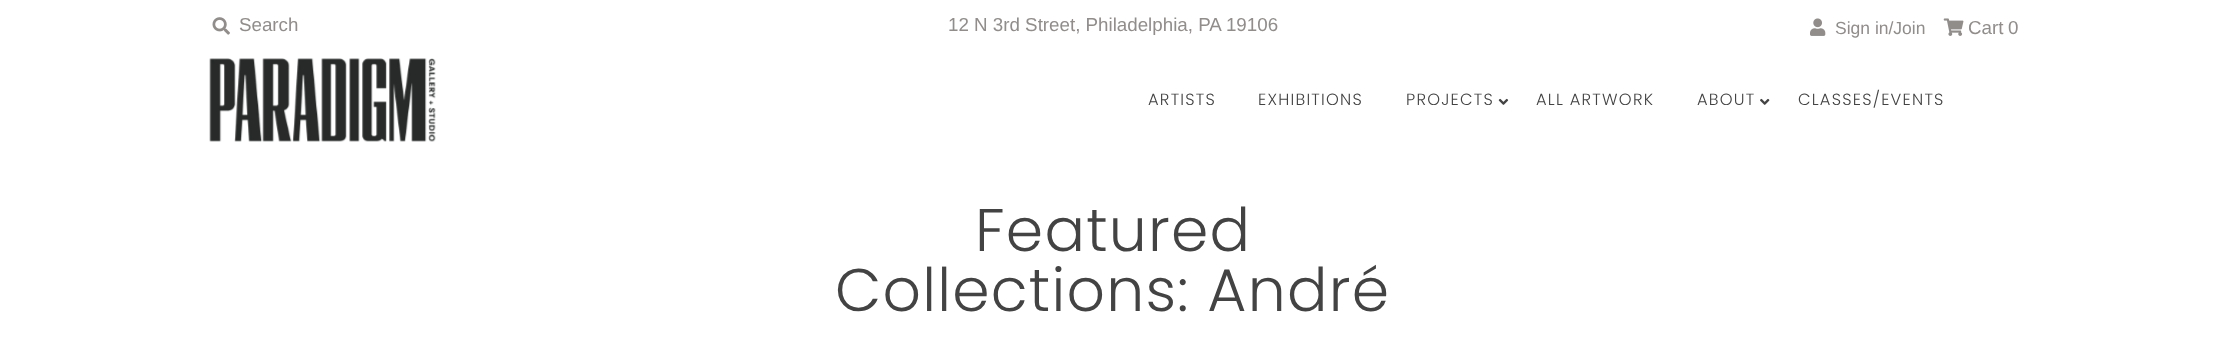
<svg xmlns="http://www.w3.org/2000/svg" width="2226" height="353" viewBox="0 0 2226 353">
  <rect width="100%" height="100%" fill="rgb(255,255,255)"/>
  <image x="212" y="17" width="18" height="18" href="pic1.png"/>
  <g font-family="Liberation Sans" font-size="18.75" fill="rgb(144,141,139)">
    <text x="239" y="31">Search</text>
    <text x="948" y="31">12 N 3rd Street, Philadelphia, PA 19106</text>
  </g>
  <image x="1810" y="18" width="16" height="18" href="pic2.png"/>
  <text x="1835" y="34" font-family="Liberation Sans" font-size="17.5" fill="rgb(144,141,139)">Sign in/Join</text>
  <image x="1943" y="18" width="21" height="18" href="pic3.png"/>
  <g font-family="Liberation Sans" font-size="18.75" fill="rgb(144,141,139)">
    <text x="1968" y="34">Cart</text>
    <text x="2008" y="34">0</text>
  </g>
  <image x="209" y="58" width="227" height="84" href="pic4.png"/>
  <g font-family="Poppins" font-size="16.25" font-weight="300" letter-spacing="1.25" fill="rgb(67,67,67)">
    <text x="1148" y="105">ARTISTS</text>
    <text x="1258" y="105">EXHIBITIONS</text>
    <text x="1406" y="105">PROJECTS</text>
  </g>
  <image x="1498" y="98" width="11" height="7" href="pic5.png"/>
  <g font-family="Poppins" font-size="16.25" font-weight="300" letter-spacing="1.25" fill="rgb(67,67,67)">
    <text x="1536" y="105">ALL ARTWORK</text>
    <text x="1697" y="105">ABOUT</text>
  </g>
  <image x="1760" y="98" width="10" height="7" href="pic6.png"/>
  <text x="1798" y="105" font-family="Poppins" font-size="16.25" font-weight="300" letter-spacing="1.25" fill="rgb(67,67,67)">CLASSES/EVENTS</text>
  <g font-family="Poppins" font-size="60" font-weight="300" letter-spacing="1.25" fill="rgb(67,67,67)">
    <text x="975" y="251">Featured</text>
    <text x="835" y="311">Collections: André</text>
  </g>
</svg>
